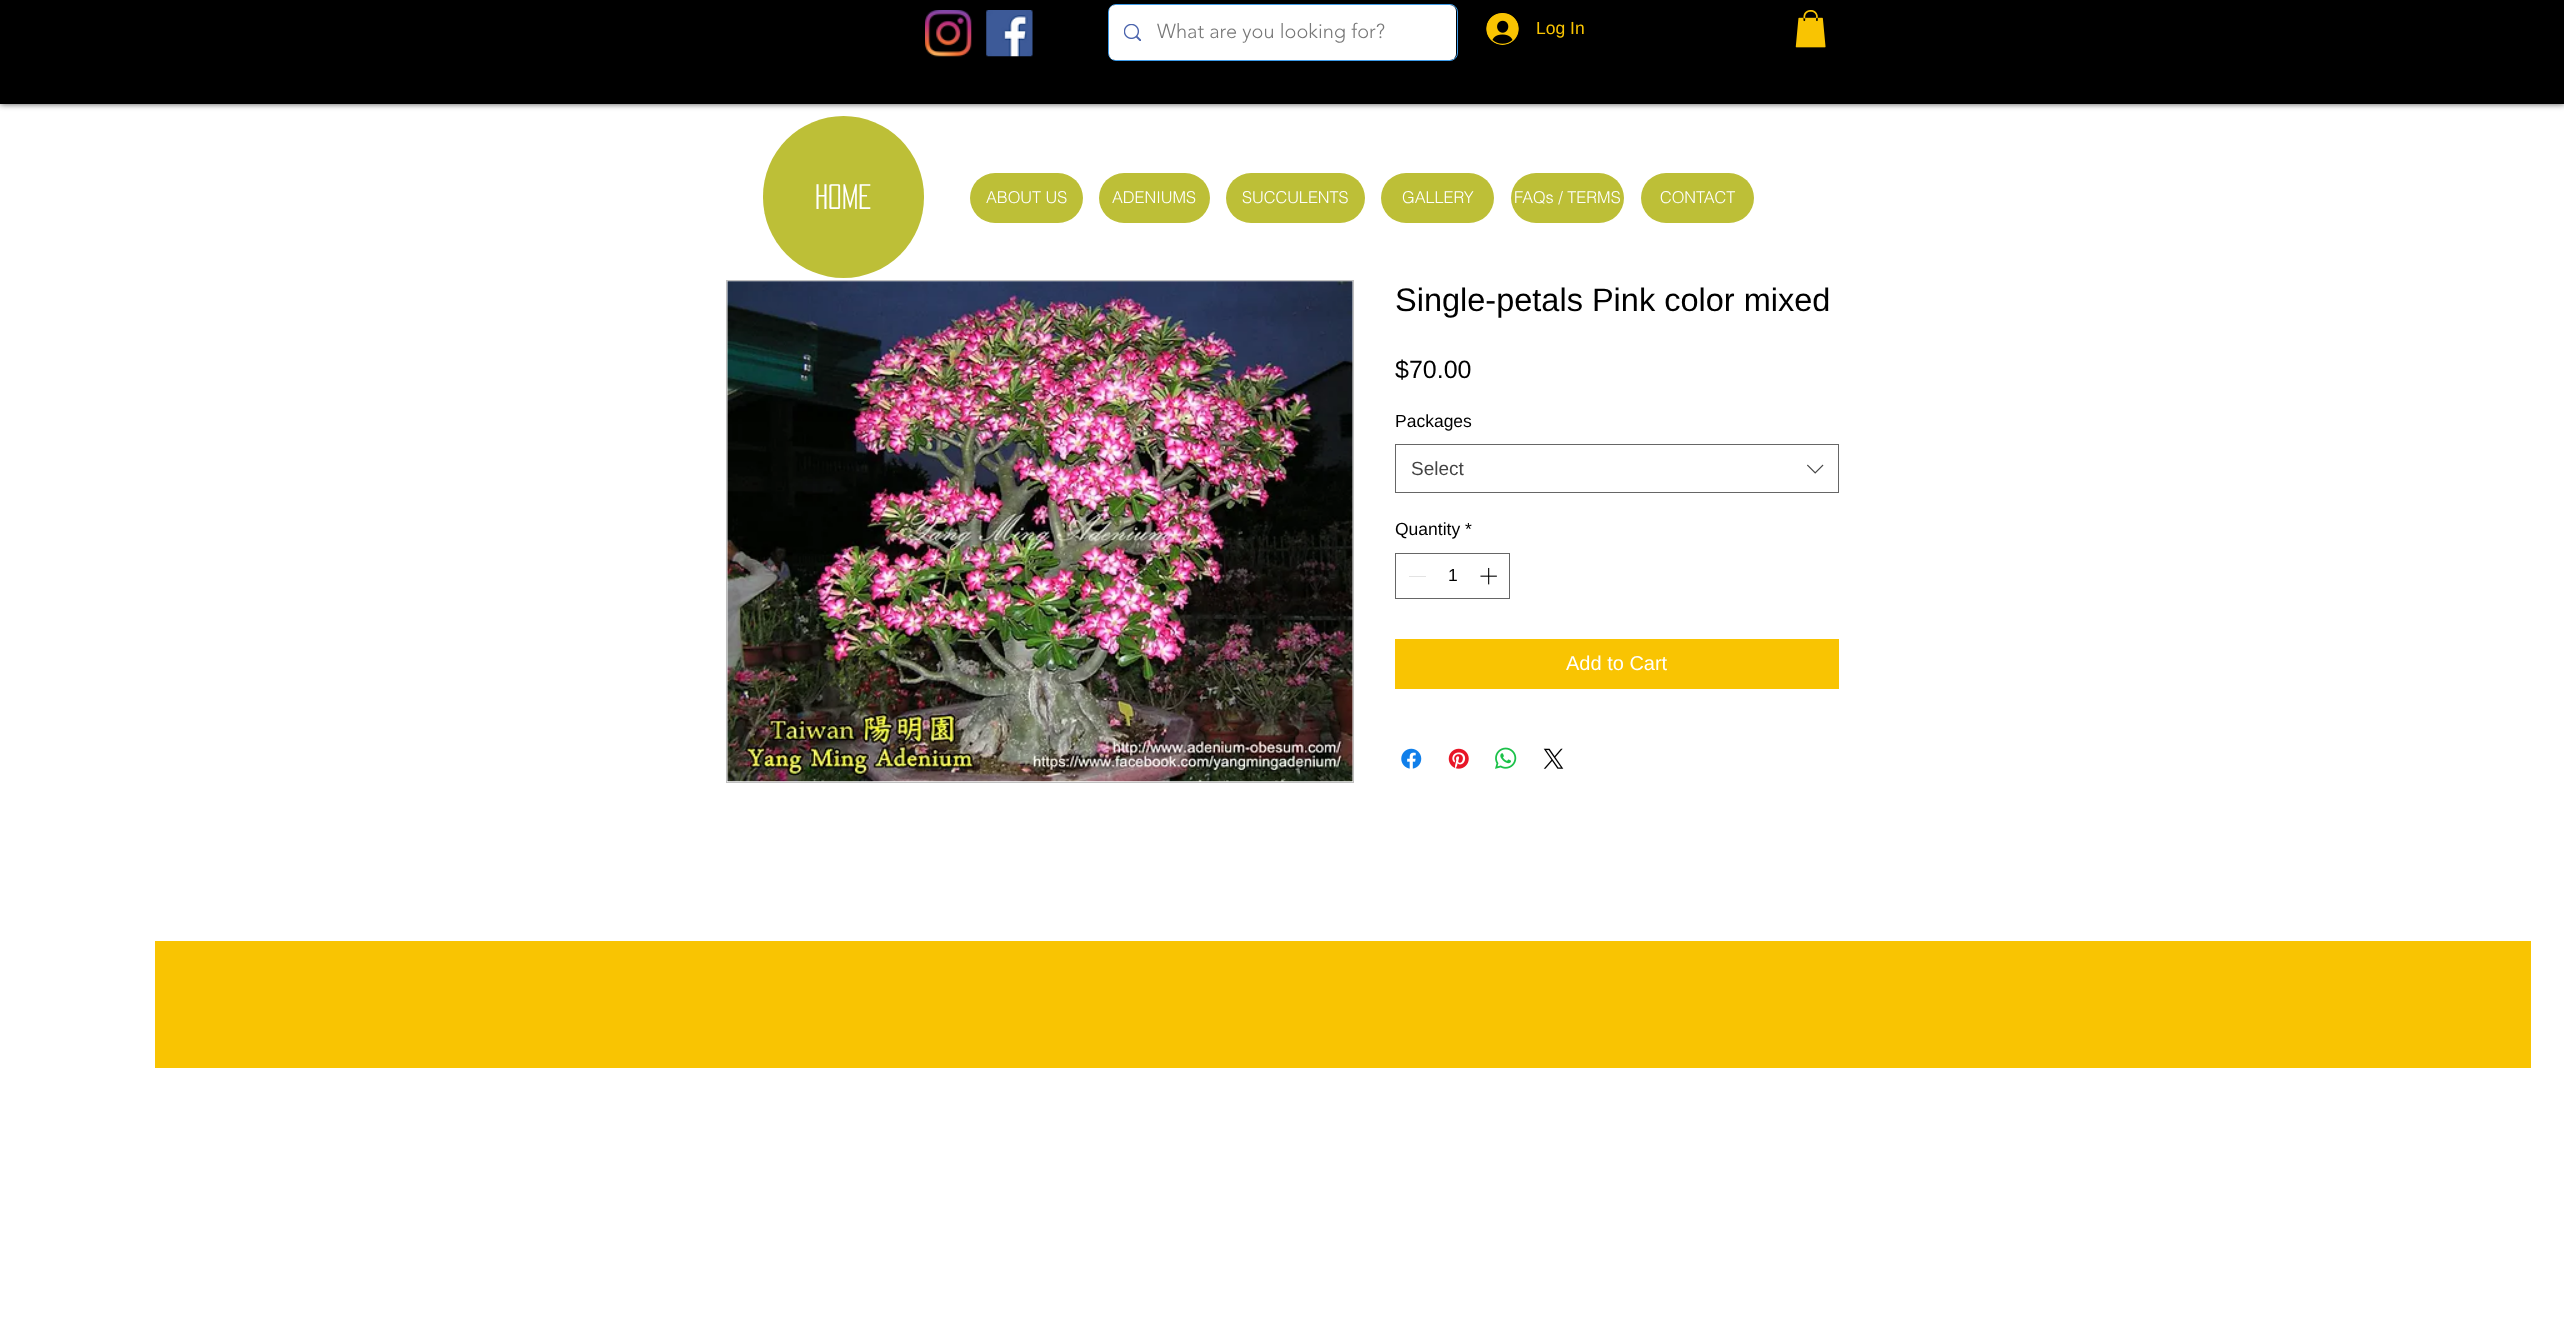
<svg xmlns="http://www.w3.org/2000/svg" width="2564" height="1323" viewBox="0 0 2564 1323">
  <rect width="100%" height="100%" fill="rgb(255,255,255)"/>
  <rect x="0" y="0" width="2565" height="104" fill="rgba(0,0,0,0.7)" filter="blur(3px)"/>
  <rect x="0" y="0" width="2564" height="104" fill="rgb(0,0,0)"/>
  <image x="925" y="10" width="47" height="47" href="pic1.png"/>
  <image x="986" y="10" width="47" height="47" href="pic2.png"/>
  <rect x="1108.5" y="4.5" width="349" height="56" rx="7.5" fill="none" stroke="rgb(61,155,233)"/>
  <rect x="1109" y="5" width="347" height="55" rx="6" fill="rgb(255,255,255)"/>
  <image x="1124" y="24" width="17" height="17" href="pic3.png"/>
  <text x="1157" y="38" font-family="'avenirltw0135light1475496'" font-size="20" font-weight="300" fill="rgb(120,120,120)">What are you looking for?</text>
  <image x="1486" y="13" width="33" height="32" href="pic4.png"/>
  <text x="1536" y="34" font-family="Liberation Sans" font-size="17.5" fill="rgb(249,196,2)">Log In</text>
  <image x="1795" y="10" width="31" height="38" href="pic5.png"/>
  <rect x="763" y="116" width="161" height="162" rx="80.5" fill="rgb(189,191,55)"/>
  <text x="815" y="209" font-family="'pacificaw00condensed'" font-size="31" fill="rgb(255,255,255)">HOME</text>
  <rect x="970" y="173" width="113" height="50" rx="25" fill="rgb(189,191,55)"/>
  <text x="986" y="203" font-family="helvetica" font-size="16.25" font-weight="300" fill="rgb(255,255,255)">ABOUT US</text>
  <rect x="1099" y="173" width="111" height="50" rx="25" fill="rgb(189,191,55)"/>
  <text x="1112" y="203" font-family="helvetica" font-size="16.25" font-weight="300" fill="rgb(255,255,255)">ADENIUMS</text>
  <rect x="1226" y="173" width="139" height="50" rx="25" fill="rgb(189,191,55)"/>
  <text x="1242" y="203" font-family="helvetica" font-size="16.25" font-weight="300" fill="rgb(255,255,255)">SUCCULENTS</text>
  <rect x="1381" y="173" width="113" height="50" rx="25" fill="rgb(189,191,55)"/>
  <text x="1402" y="203" font-family="helvetica" font-size="16.25" font-weight="300" fill="rgb(255,255,255)">GALLERY</text>
  <rect x="1511" y="173" width="113" height="50" rx="25" fill="rgb(189,191,55)"/>
  <text x="1514" y="203" font-family="helvetica" font-size="16.25" font-weight="300" fill="rgb(255,255,255)">FAQs / TERMS</text>
  <rect x="1641" y="173" width="113" height="50" rx="25" fill="rgb(189,191,55)"/>
  <text x="1660" y="203" font-family="helvetica" font-size="16.25" font-weight="300" fill="rgb(255,255,255)">CONTACT</text>
  <rect x="726.5" y="280.5" width="627" height="502" fill="none" stroke="rgb(192,192,192)"/>
  <image x="727" y="281" width="626" height="501" href="pic6.png"/>
  <text x="1395" y="311" font-family="Liberation Sans" font-size="32.5" fill="rgb(0,0,0)">Single-petals Pink color mixed</text>
  <text x="1395" y="378" font-family="Liberation Sans" font-size="25" fill="rgb(0,0,0)">$70.00</text>
  <text x="1395" y="427" font-family="Liberation Sans" font-size="17.5" fill="rgb(0,0,0)">Packages</text>
  <rect x="1395.5" y="444.5" width="443" height="48" fill="none" stroke="rgb(102,102,102)"/>
  <text x="1411" y="475" font-family="Liberation Sans" font-size="19" fill="rgb(68,68,68)">Select</text>
  <image x="1807" y="464" width="17" height="10" href="pic7.png"/>
  <text x="1395" y="535" font-family="Liberation Sans" font-size="17.5" fill="rgb(0,0,0)">Quantity *</text>
  <rect x="1395.5" y="553.5" width="114" height="45" fill="none" stroke="rgb(102,102,102)"/>
  <rect x="1409" y="576" width="17" height="1" fill="rgb(227,227,227)"/>
  <text x="1448" y="581" font-family="Liberation Sans" font-size="17.5" fill="rgb(0,0,0)">1</text>
  <image x="1480" y="567" width="17" height="18" href="pic8.png"/>
  <rect x="1395" y="639" width="444" height="50" fill="rgb(249,196,2)"/>
  <text x="1566" y="670" font-family="Liberation Sans" font-size="20" fill="rgb(255,255,255)">Add to Cart</text>
  <image x="1401" y="748" width="21" height="21" href="pic9.png"/>
  <image x="1448" y="748" width="21" height="21" href="pic10.png"/>
  <image x="1495" y="747" width="22" height="22" href="pic11.png"/>
  <image x="1543" y="748" width="21" height="21" href="pic12.png"/>
  <rect x="155" y="941" width="2376" height="127" fill="rgb(249,196,2)"/>
</svg>
